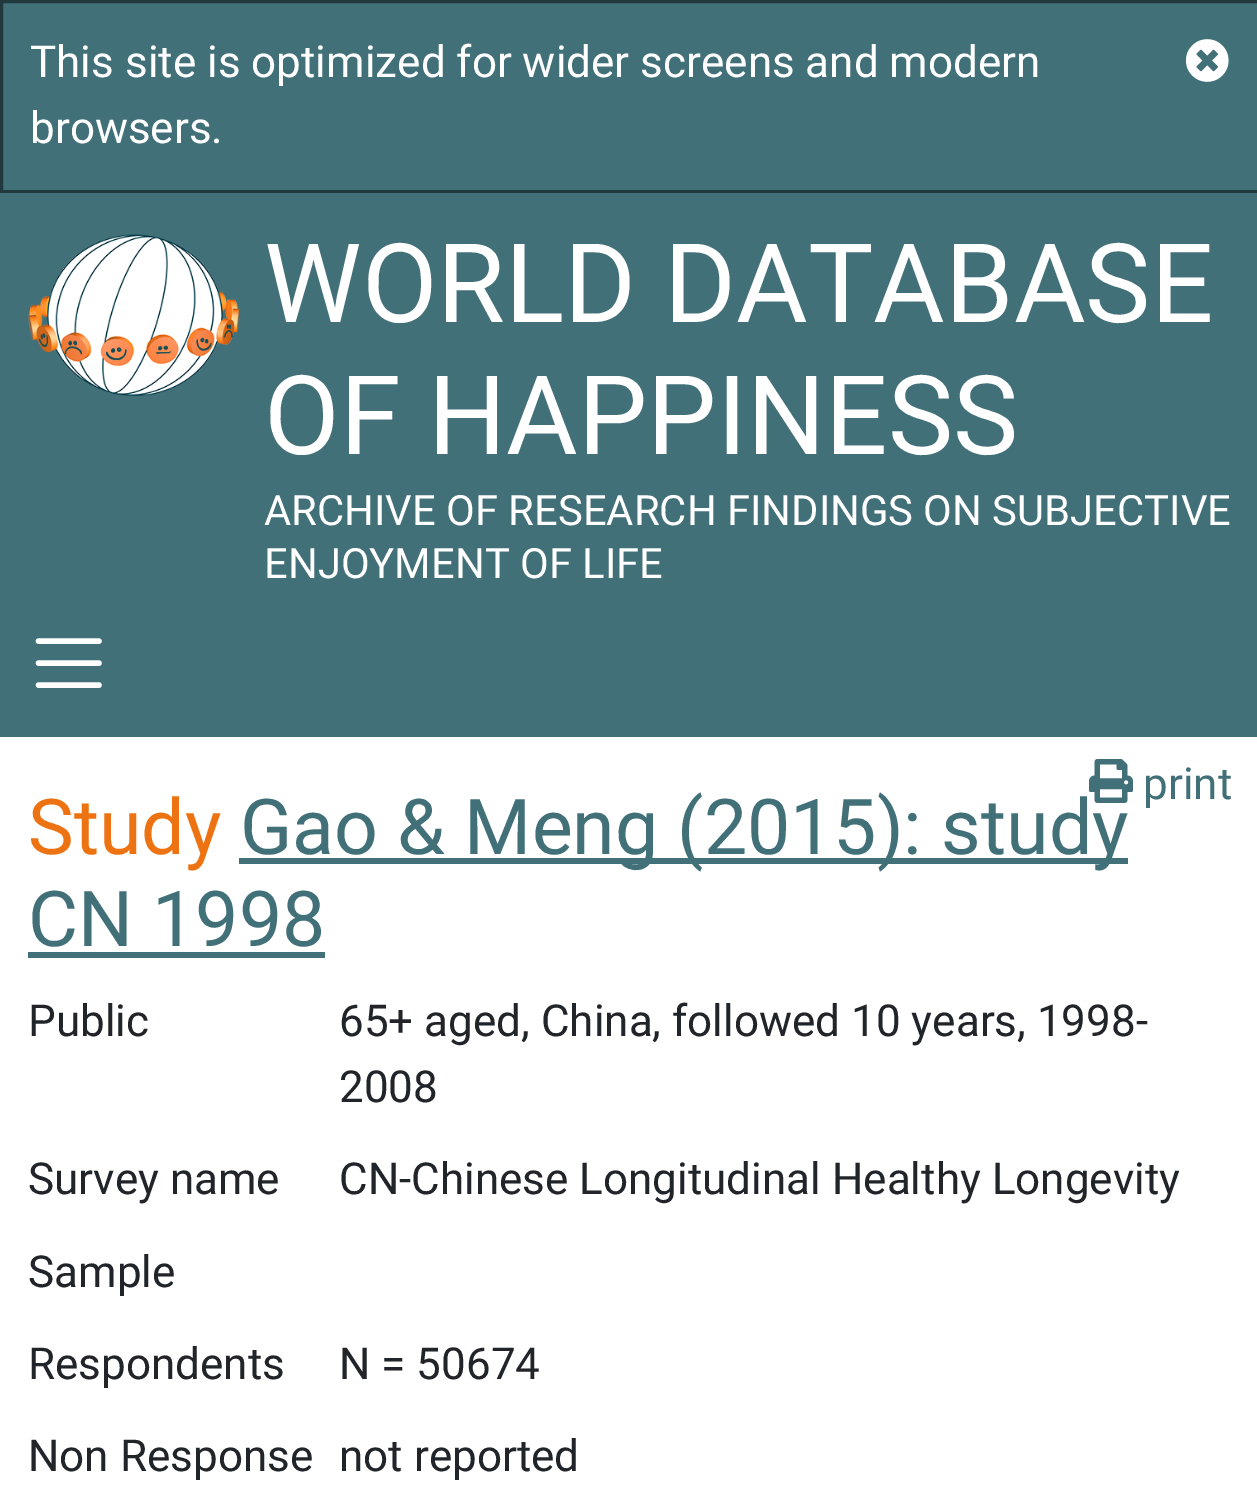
%!PS-Adobe-3.0
%%BoundingBox: 0 0 1257 1497
%%LanguageLevel: 3
%%Pages: 1
%%EndComments
%%BeginProlog
/setink { dup -16 bitshift 255 div exch dup -8 bitshift 255 and 255 div exch 255 and 255 div setrgbcolor } def
/usefont { [ exch dup neg 0 0 3 -1 roll 0 0 ] selectfont } def
/drawimage { 5 dict begin { /h /w /y /x /name } { exch def } forall
  gsave x y translate w h scale
  w h 8 [w 0 0 h 0 0] name (r) file false 3 colorimage grestore end } def
%%EndProlog
%%BeginSetup
<< /PageSize [1257 1497] >> setpagedevice
%%EndSetup
%%Page: 1 1
0 1497 translate 1 -1 scale
4 setmiterlimit
16#FFFFFF setink
0 0 1257 1497 rectfill
16#417078 setink
1.5 1.5 moveto 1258.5 1.5 lineto 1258.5 191.5 lineto 1.5 191.5 lineto closepath gsave fill grestore
16#21383C setink
3 setlinewidth
stroke
/Roboto-Regular 44 usefont
16#FFFFFF setink
30 77 moveto (This site is optimized for wider screens and modern) show
30 143 moveto (browsers.) show
(img1.raw) 1185 39 44 43 drawimage
16#417078 setink
0 193 1257 544 rectfill
(img2.raw) 28 234 212 162 drawimage
/Roboto-Regular 110 usefont
16#FFFFFF setink
264 322 moveto (WORLD DATABASE) show
264 454 moveto (OF HAPPINESS) show
/Roboto-Regular 41.8 usefont
264 525 moveto (ARCHIVE OF RESEARCH FINDINGS ON SUBJECTIVE) show
264 578 moveto (ENJOYMENT OF LIFE) show
5.5 setlinewidth
1 setlinecap
38.5 641 moveto 99 641 lineto 38.5 663 moveto 99 663 lineto 38.5 685 moveto 99 685 lineto stroke
16#417078 setink
239 858 889 6 rectfill
/Roboto-Regular 77 usefont
240 854 moveto (Gao & Meng \(2015\): study) show
(img3.raw) 1089 759 44 44 drawimage
/Roboto-Regular 44 usefont
1143 799 moveto (print) show
/Roboto-Regular 77 usefont
16#ED7212 setink
28 854 moveto (Study) show
16#417078 setink
28 946 moveto (CN 1998) show
28 952 297 6 rectfill
/Roboto-Regular 44 usefont
16#212529 setink
[
    [(Public) 28 1036]
    [(65+ aged, China, followed 10 years, 1998-) 339 1036]
    [(2008) 339 1102]
    [(Survey name) 28 1194]
    [(CN-Chinese Longitudinal Healthy Longevity) 339 1194]
    [(Sample) 28 1287]
    [(Respondents) 28 1379]
    [(N = 50674) 339 1379]
    [(Non Response) 28 1471]
    [(not reported) 339 1471]
] { aload pop moveto show } forall
showpage
%%EOF
